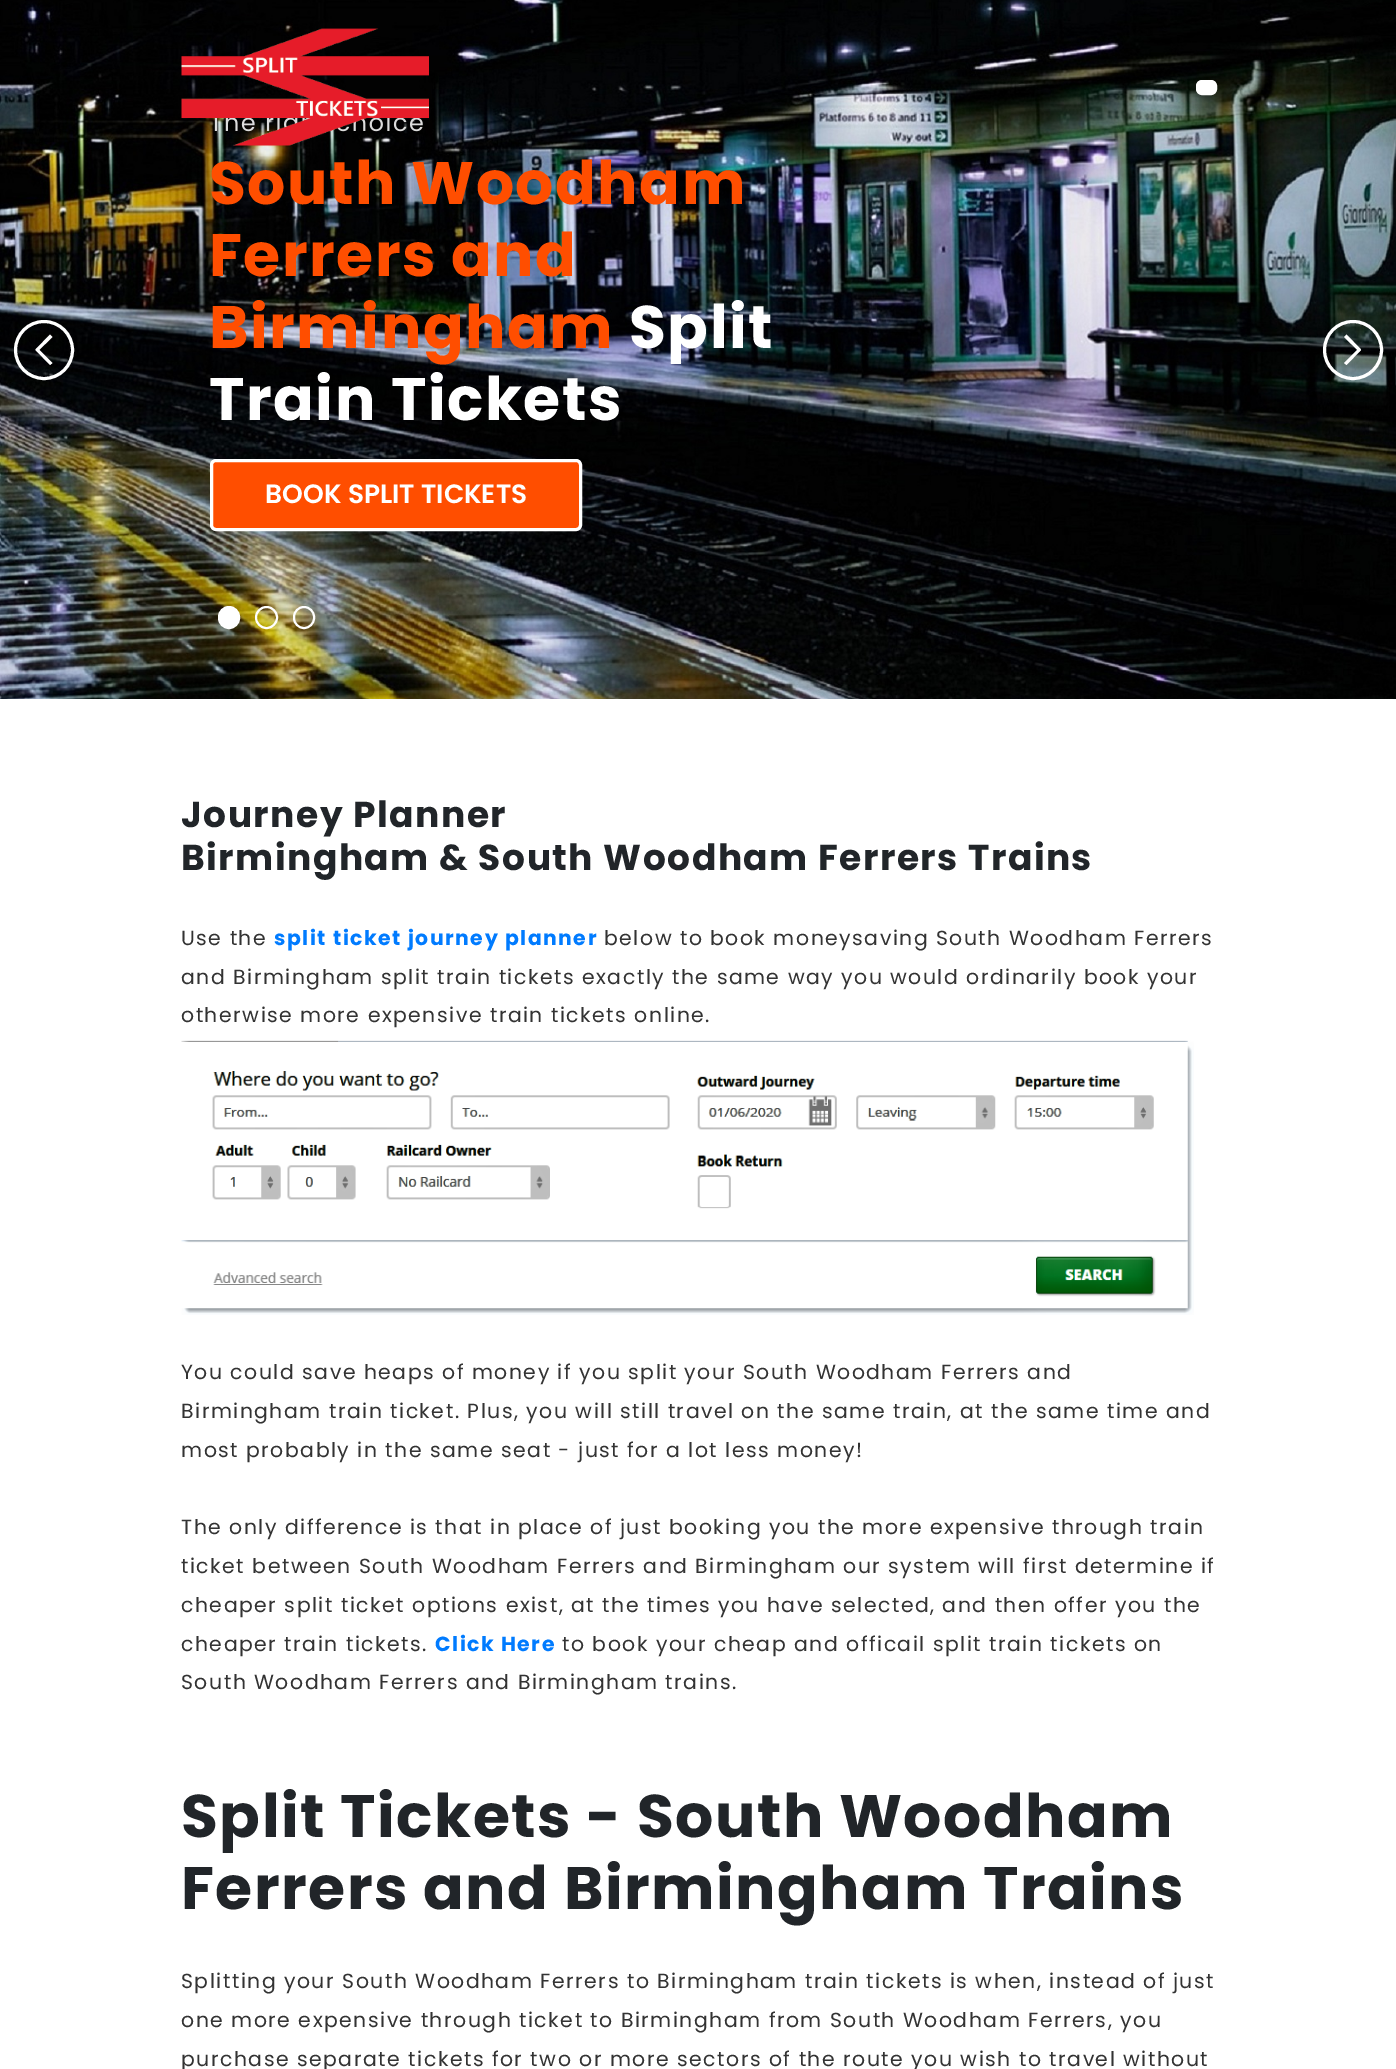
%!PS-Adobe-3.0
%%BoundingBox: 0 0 1396 2069
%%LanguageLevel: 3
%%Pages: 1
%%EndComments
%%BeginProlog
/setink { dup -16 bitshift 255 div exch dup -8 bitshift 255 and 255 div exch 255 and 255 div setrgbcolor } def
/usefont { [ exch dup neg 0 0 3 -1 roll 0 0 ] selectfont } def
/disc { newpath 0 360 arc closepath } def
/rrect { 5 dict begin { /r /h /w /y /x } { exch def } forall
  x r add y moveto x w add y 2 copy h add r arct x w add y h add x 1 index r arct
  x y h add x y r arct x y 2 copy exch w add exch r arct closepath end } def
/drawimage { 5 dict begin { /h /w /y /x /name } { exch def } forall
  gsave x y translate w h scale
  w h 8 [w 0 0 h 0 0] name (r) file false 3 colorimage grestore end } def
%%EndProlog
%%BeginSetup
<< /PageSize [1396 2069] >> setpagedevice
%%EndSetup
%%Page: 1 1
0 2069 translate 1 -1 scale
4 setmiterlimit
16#FFFFFF setink
0 0 1396 2069 rectfill
(img2.raw) 0 0 1396 699 drawimage
/Poppins-Regular 24 usefont
16#DDDDDD setink
241 131 moveto 1.5 0 (e r) ashow
369 131 moveto 1.5 0 (oice) ashow
(img1.raw) 181 28 248 118 drawimage
16#FFFFFF setink
1197 81 19 13 5 rrect gsave fill grestore
2 setlinewidth
stroke
/Poppins-Bold 60 usefont
16#FF4E00 setink
209 204 moveto 1.5 0 (South Woodham) ashow
209 276 moveto 1.5 0 (Ferrers and) ashow
209 348 moveto 1.5 0 (Birmingham) ashow
16#FFFFFF setink
629 348 moveto 1.5 0 (Split) ashow
209 420 moveto 1.5 0 (Train Tickets) ashow
16#FF4E00 setink
211.5 460.5 369 69 4.5 rrect gsave fill grestore
16#FFFFFF setink
3 setlinewidth
stroke
/Poppins-SemiBold 26.5 usefont
265 503 moveto (BOOK SPLIT TICKETS) show
44 350 28.5 disc stroke
35.5 350 moveto 37.5 348 lineto 52.5 363 lineto 50 365 lineto closepath fill
37.5 351.5 moveto 35.5 349.5 lineto 50 334.5 lineto 52.5 337 lineto closepath fill
1353 350 28.5 disc stroke
1359 348 moveto 1361 350 lineto 1346.5 365 lineto 1344 363 lineto closepath fill
1361 349.5 moveto 1359 351.5 lineto 1344 337 lineto 1346.5 334.5 lineto closepath fill
219 607 20 21 10 rrect gsave fill grestore
2 setlinewidth
stroke
266.5 617.5 10.5 disc stroke
294 607 20 21 10 rrect stroke
/Poppins-Bold 36 usefont
16#212529 setink
181 827 moveto 1.5 0 (Journey Planner) ashow
181 870 moveto 1.5 0 (Birmingham & South Woodham Ferrers Trains) ashow
/Poppins-Regular 20.4 usefont
16#333333 setink
181 945 moveto 1.5 0 (Use the) ashow
/Poppins-Bold 20.4 usefont
16#007BFF setink
274 945 moveto 1.5 0 (split ticket journey planner) ashow
/Poppins-Regular 20.4 usefont
16#333333 setink
604 945 moveto 1.5 0 (below to book moneysaving South Woodham Ferrers) ashow
181 984 moveto 1.5 0 (and Birmingham split train tickets exactly the same way you would ordinarily book your) ashow
181 1022 moveto 1.5 0 (otherwise more expensive train tickets online.) ashow
(img3.raw) 181 1040 1013 275 drawimage
181 1379 moveto 1.5 0 (You could save heaps of money if you split your South Woodham Ferrers and) ashow
181 1418 moveto 1.5 0 (Birmingham train ticket. Plus, you will still travel on the same train, at the same time and) ashow
181 1457 moveto 1.5 0 (most probably in the same seat - just for a lot less money!) ashow
181 1534 moveto 1.5 0 (The only difference is that in place of just booking you the more expensive through train) ashow
181 1573 moveto 1.5 0 (ticket between South Woodham Ferrers and Birmingham our system will first determine if) ashow
181 1612 moveto 1.5 0 (cheaper split ticket options exist, at the times you have selected, and then offer you the) ashow
181 1651 moveto 1.5 0 (cheaper train tickets.) ashow
/Poppins-Bold 20.4 usefont
16#007BFF setink
435 1651 moveto 1.5 0 (Click Here) ashow
/Poppins-Regular 20.4 usefont
16#333333 setink
562 1651 moveto 1.5 0 (to book your cheap and officail split train tickets on) ashow
181 1689 moveto 1.5 0 (South Woodham Ferrers and Birmingham trains.) ashow
/Poppins-Bold 60 usefont
16#212529 setink
181 1837 moveto 1.5 0 (Split Tickets - South Woodham) ashow
181 1909 moveto 1.5 0 (Ferrers and Birmingham Trains) ashow
/Poppins-Regular 20.4 usefont
16#333333 setink
181 1988 moveto 1.5 0 (Splitting your South Woodham Ferrers to Birmingham train tickets is when, instead of just) ashow
181 2027 moveto 1.5 0 (one more expensive through ticket to Birmingham from South Woodham Ferrers, you) ashow
181 2066 moveto 1.5 0 (purchase separate tickets for two or more sectors of the route you wish to travel without) ashow
showpage
%%EOF
